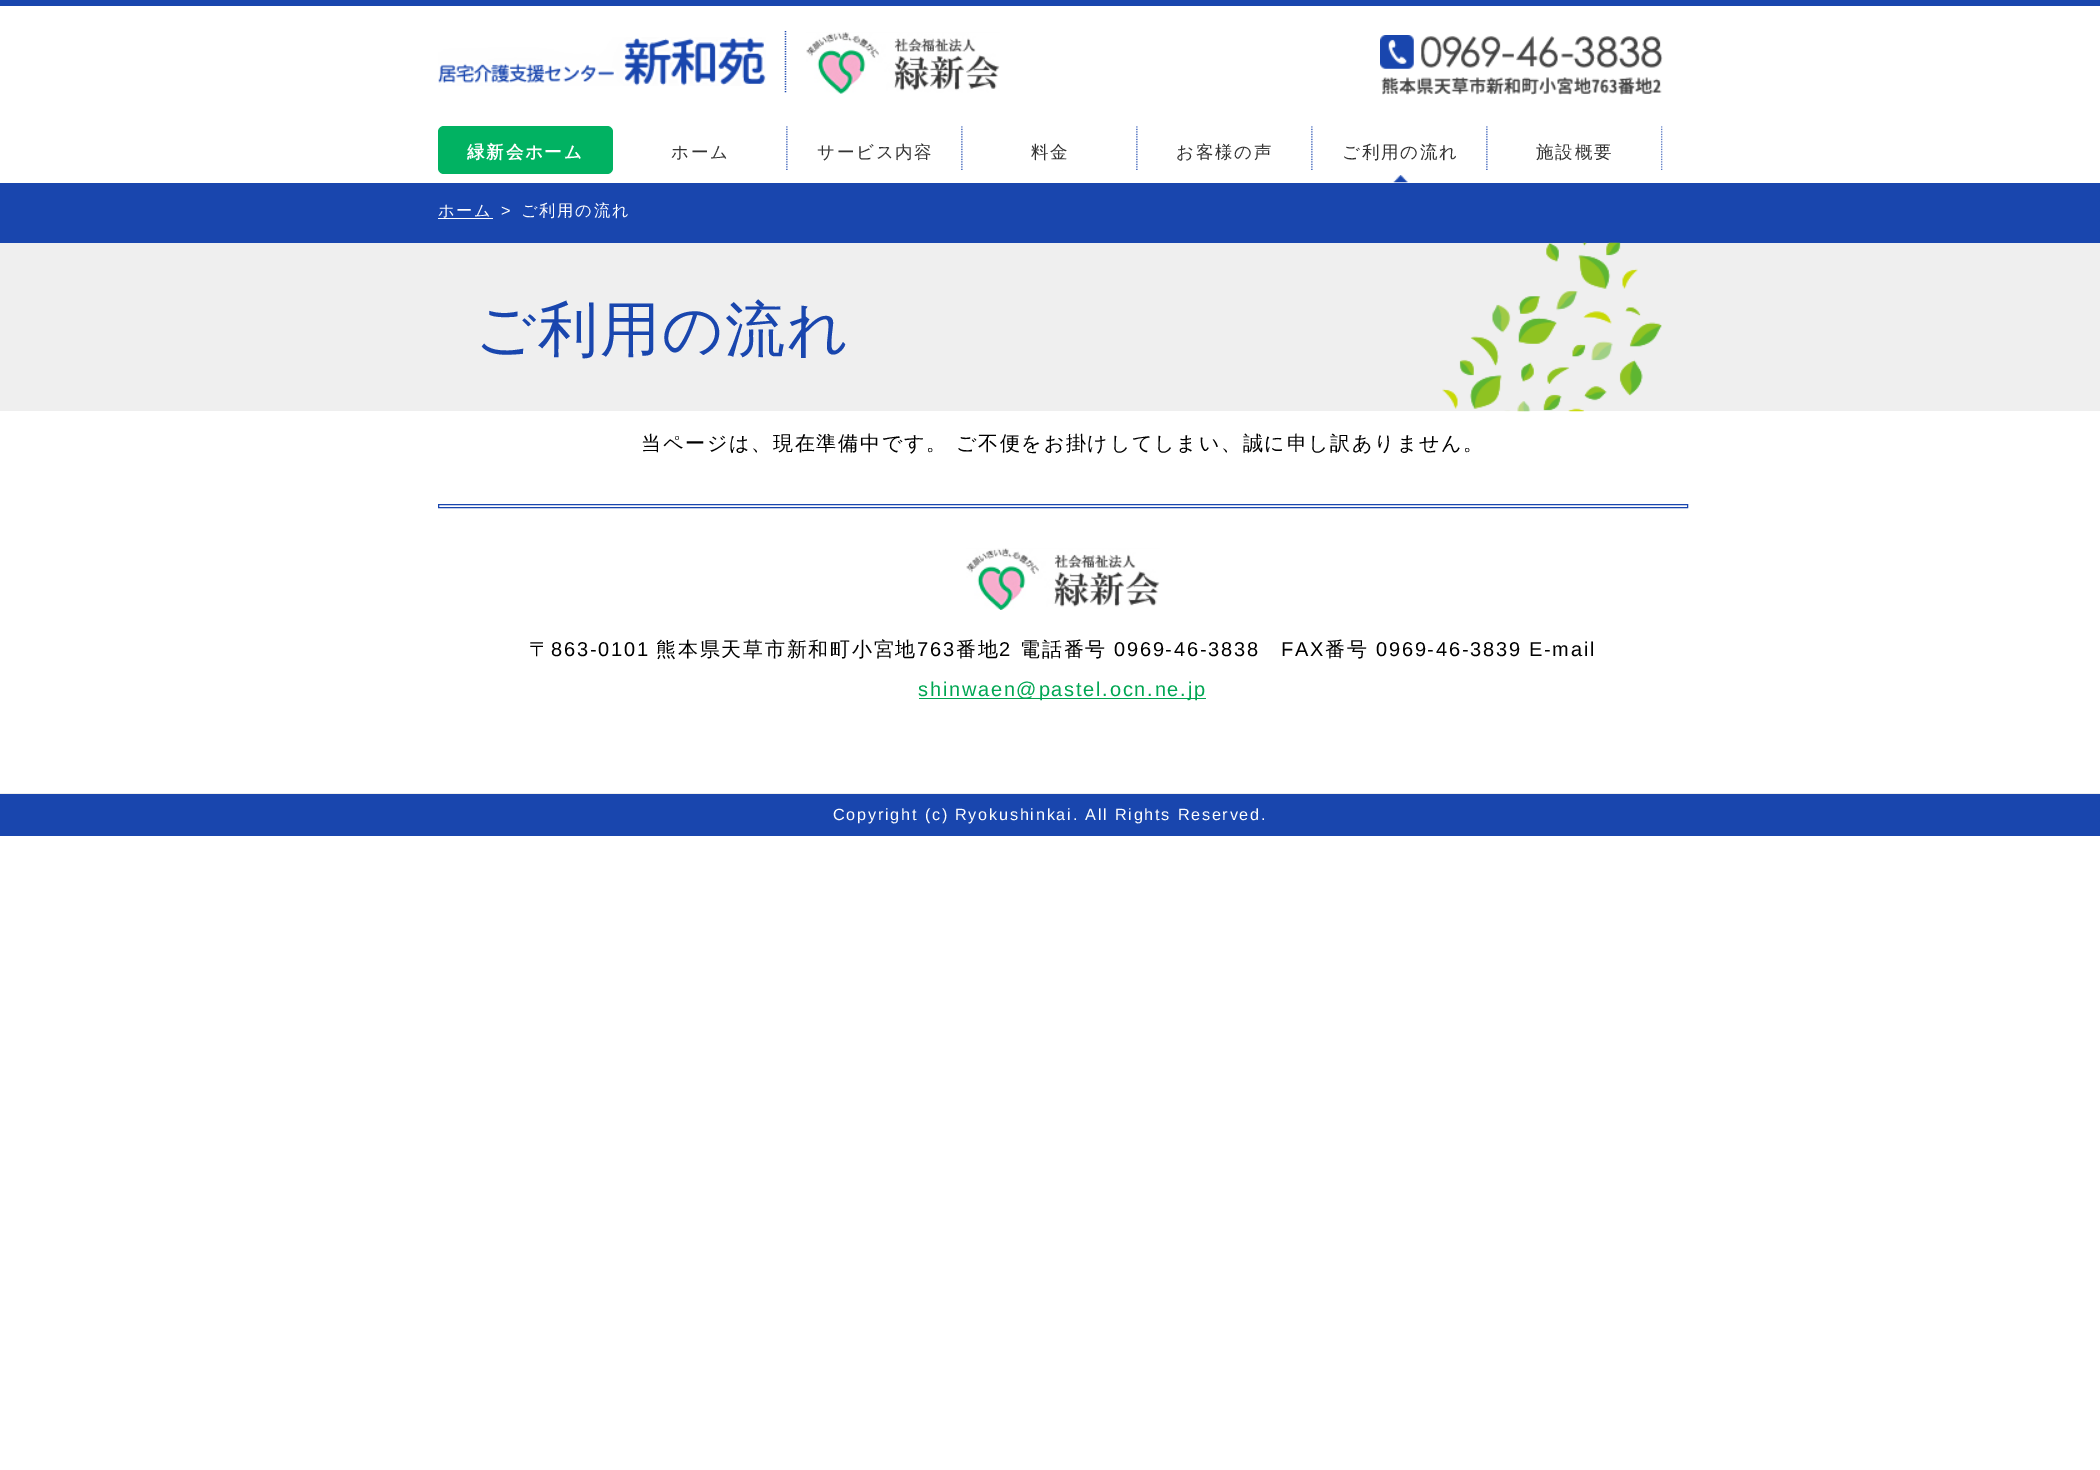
%!PS-Adobe-3.0
%%BoundingBox: 0 0 2100 1470
%%LanguageLevel: 3
%%Pages: 1
%%EndComments
%%BeginProlog
/setink { dup -16 bitshift 255 div exch dup -8 bitshift 255 and 255 div exch 255 and 255 div setrgbcolor } def
/usefont { [ exch dup neg 0 0 3 -1 roll 0 0 ] selectfont } def
/rrect { 5 dict begin { /r /h /w /y /x } { exch def } forall
  x r add y moveto x w add y 2 copy h add r arct x w add y h add x 1 index r arct
  x y h add x y r arct x y 2 copy exch w add exch r arct closepath end } def
/drawimage { 5 dict begin { /h /w /y /x /name } { exch def } forall
  gsave x y translate w h scale
  w h 8 [w 0 0 h 0 0] name (r) file false 3 colorimage grestore end } def
%%EndProlog
%%BeginSetup
<< /PageSize [2100 1470] >> setpagedevice
%%EndSetup
%%Page: 1 1
0 1470 translate 1 -1 scale
4 setmiterlimit
16#FFFFFF setink
0 0 2100 1470 rectfill
16#1946AE setink
0 0 2100 6 rectfill
1.2 setlinewidth
[1.25 1.25] 0 setdash
785.5 31 moveto 785.5 92.5 lineto stroke
(img1.raw) 438 37 328 49 drawimage
(img2.raw) 806 32 194 62 drawimage
(img3.raw) 1380 35 283 60 drawimage
16#01B262 setink
438 126 175 48 6 rrect fill
/WenQuanYiZenHei-Bold 17.5 usefont
16#FFFFFF setink
467 158 moveto 1.75 0 (緑新会ホーム) ashow
(img4.raw) 786 126 2 44 drawimage
/WenQuanYiZenHei-Medium 17.5 usefont
16#333333 setink
671 158 moveto 1.75 0 (ホーム) ashow
(img4.raw) 961 126 2 44 drawimage
817 158 moveto 1.75 0 (サービス内容) ashow
(img4.raw) 1136 126 2 44 drawimage
1031 158 moveto 1.75 0 (料金) ashow
(img4.raw) 1311 126 2 44 drawimage
1176 158 moveto 1.75 0 (お客様の声) ashow
(img4.raw) 1486 126 2 44 drawimage
(img5.raw) 1393 175 15 8 drawimage
1342 158 moveto 1.75 0 (ご利用の流れ) ashow
(img6.raw) 1661 126 2 44 drawimage
1536 158 moveto 1.75 0 (施設概要) ashow
16#1946AE setink
0 183 2100 60 rectfill
/WenQuanYiZenHei-Medium 16.25 usefont
16#FFFFFF setink
438 216 moveto 1.75 0 (ホーム) ashow
438 218 55 1 rectfill
/LiberationSans-Regular 16.25 usefont
501 216 moveto 1.75 0 (>) ashow
/WenQuanYiZenHei-Medium 16.25 usefont
521 216 moveto 1.75 0 (ご利用の流れ) ashow
16#EFEFEF setink
0 243 2100 168 rectfill
(img7.raw) 1442 242 220 170 drawimage
/WenQuanYiZenHei-Medium 60 usefont
16#1946AE setink
475 350 moveto 1.75 0 (ご利用の流れ) ashow
/WenQuanYiZenHei-Medium 20 usefont
16#000000 setink
641 450 moveto 1.75 0 (当ページは、現在準備中です。 ご不便をお掛けしてしまい、誠に申し訳ありません。) ashow
16#1946AE setink
1 setlinewidth
[] 0 setdash
438.5 504.5 1249 3 rectstroke
(img8.raw) 966 548 194 62 drawimage
16#000000 setink
529 656 moveto 1.75 0 (〒) ashow
/LiberationSans-Regular 20 usefont
551 656 moveto 1.75 0 (863-0101) ashow
/WenQuanYiZenHei-Medium 20 usefont
656 656 moveto 1.75 0 (熊本県天草市新和町小宮地) ashow
/LiberationSans-Regular 20 usefont
917 656 moveto 1.75 0 (763) ashow
/WenQuanYiZenHei-Medium 20 usefont
956 656 moveto 1.75 0 (番地) ashow
/LiberationSans-Regular 20 usefont
999 656 moveto 1.75 0 (2) ashow
/WenQuanYiZenHei-Medium 20 usefont
1020 656 moveto 1.75 0 (電話番号) ashow
/LiberationSans-Regular 20 usefont
1114 656 moveto 1.75 0 (0969-46-3838) ashow
1281 656 moveto 1.75 0 (FAX) ashow
/WenQuanYiZenHei-Medium 20 usefont
1325 656 moveto 1.75 0 (番号) ashow
/LiberationSans-Regular 20 usefont
1376 656 moveto 1.75 0 (0969-46-3839 E-mail) ashow
16#00A652 setink
919 698 287 1 rectfill
918 696 moveto 1.75 0 (shinwaen@pastel.ocn.ne.jp) ashow
16#EEEEEE setink
0 793 2100 1 rectfill
16#1946AE setink
0 794 2100 42 rectfill
/LiberationSans-Regular 16.25 usefont
16#FFFFFF setink
833 820 moveto 1.75 0 (Copyright \(c\) Ryokushinkai. All Rights Reserved.) ashow
showpage
%%EOF
